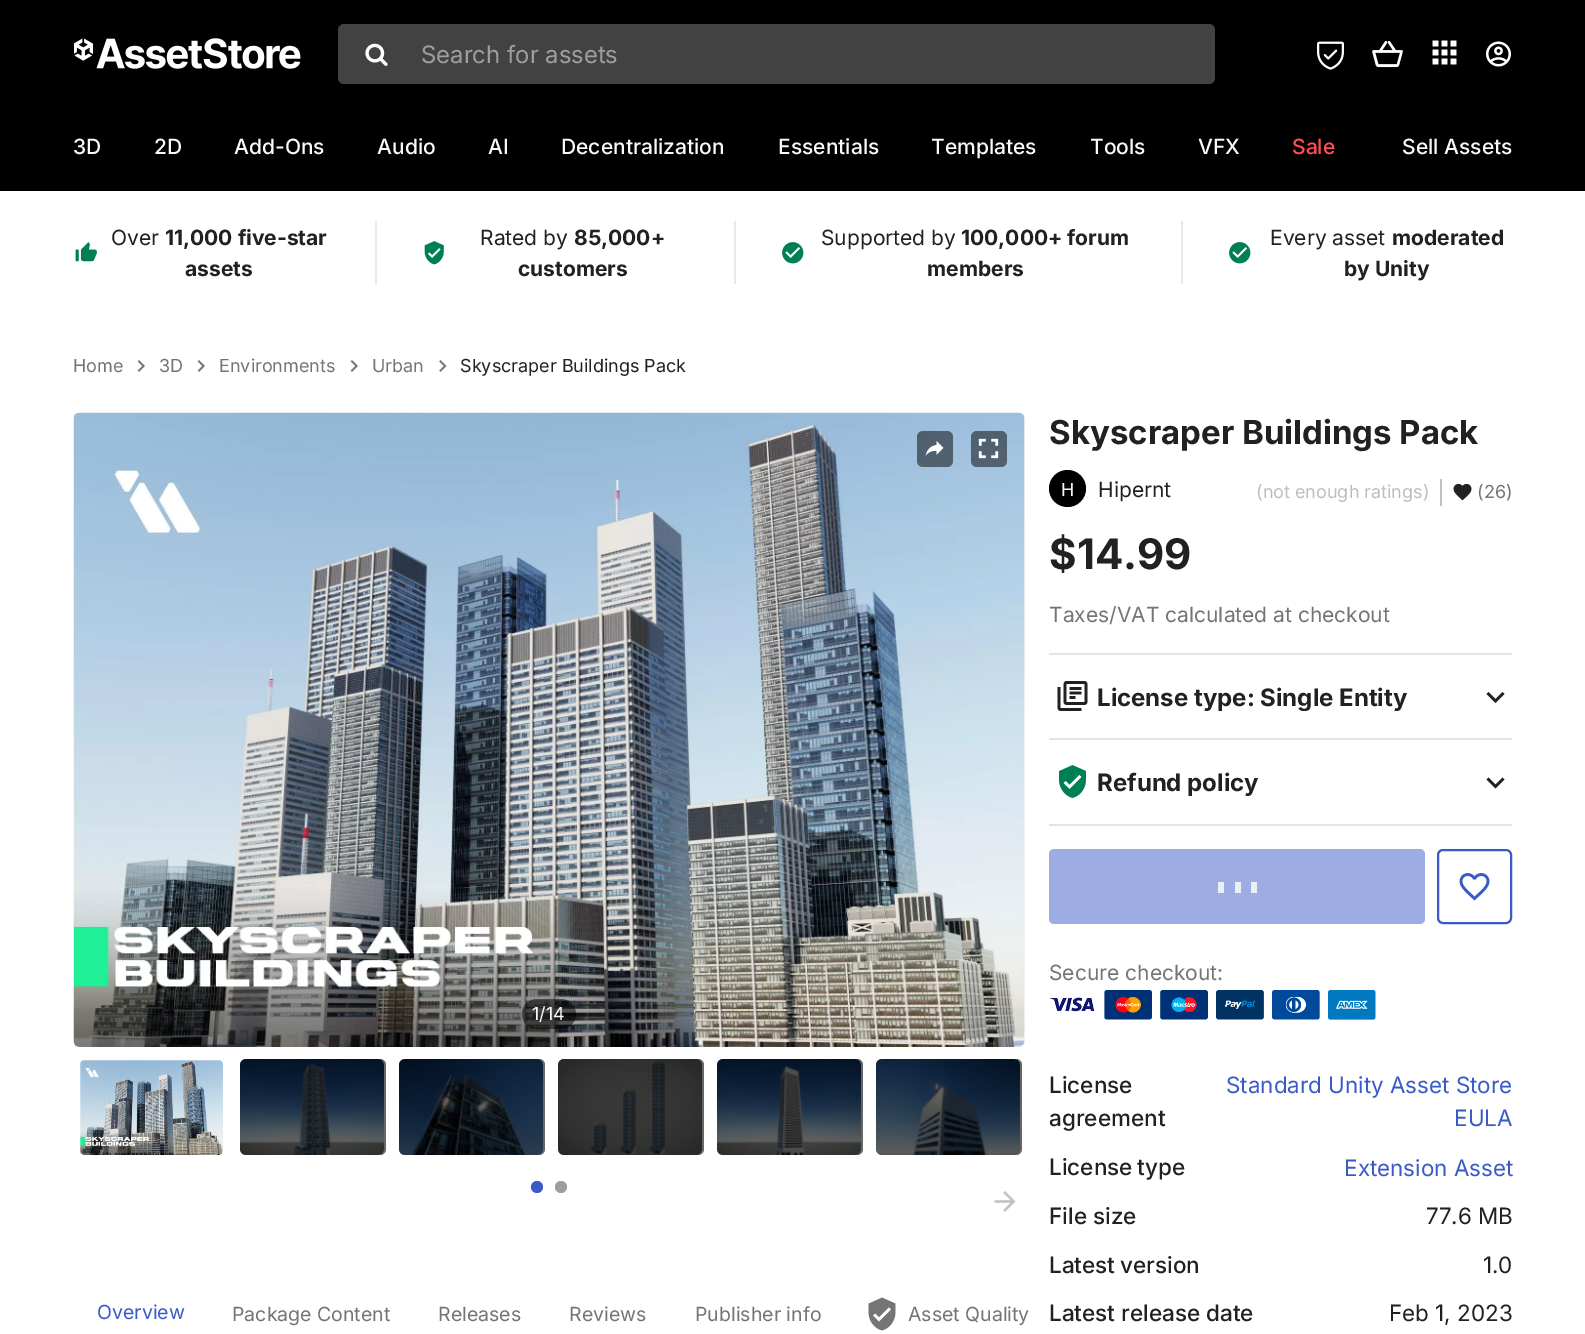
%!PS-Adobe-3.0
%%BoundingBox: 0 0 1585 1334
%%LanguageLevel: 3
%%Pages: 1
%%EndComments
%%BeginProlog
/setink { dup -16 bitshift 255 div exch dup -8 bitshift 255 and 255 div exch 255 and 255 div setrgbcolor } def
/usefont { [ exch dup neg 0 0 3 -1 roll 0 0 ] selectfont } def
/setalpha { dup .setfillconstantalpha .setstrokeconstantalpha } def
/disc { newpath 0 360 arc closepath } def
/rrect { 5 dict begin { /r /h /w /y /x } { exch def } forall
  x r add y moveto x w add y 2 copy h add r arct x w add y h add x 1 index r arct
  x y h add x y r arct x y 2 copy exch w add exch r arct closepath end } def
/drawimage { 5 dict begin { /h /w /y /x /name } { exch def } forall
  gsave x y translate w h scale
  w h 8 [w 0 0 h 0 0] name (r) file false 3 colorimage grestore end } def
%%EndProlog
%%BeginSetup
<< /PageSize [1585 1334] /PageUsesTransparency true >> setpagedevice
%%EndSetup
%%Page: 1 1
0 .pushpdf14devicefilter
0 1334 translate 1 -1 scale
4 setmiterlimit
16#FFFFFF setink
0 0 1585 1334 rectfill
16#000000 setink
0 0 1585 191 rectfill
(img1.raw) 74 38 227 31 drawimage
16#424242 setink
338 24 877 60 6 rrect fill
(img2.raw) 365 43 23 23 drawimage
/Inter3-Regular 24 usefont
16#9E9E9E setink
421 63 moveto (Search for assets) show
(img3.raw) 1317 41 27 29 drawimage
(img4.raw) 1372 41 31 27 drawimage
(img5.raw) 1432 40 25 25 drawimage
(img6.raw) 1486 41 25 26 drawimage
/Inter-Medium 21 usefont
16#FAFAFA setink
[
    [(3D) 73 154]
    [(2D) 154 154]
    [(Add-Ons) 234 154]
    [(Audio) 377 154]
    [(AI) 488 154]
    [(Decentralization) 561 154]
    [(Essentials) 778 154]
    [(Templates) 931 154]
    [(Tools) 1090 154]
    [(VFX) 1198 154]
] { aload pop moveto show } forall
16#FF5050 setink
1292 154 moveto (Sale) show
16#FAFAFA setink
1402 154 moveto (Sell Assets) show
(img7.raw) 75 242 22 20 drawimage
/Inter-Regular 21 usefont
16#212121 setink
111 245 moveto (Over) show
/Inter-Bold 21 usefont
165 245 moveto (11,000 five-star) show
185 276 moveto (assets) show
16#E9E9E9 setink
734 221 2 63 rectfill
375 221 2 63 rectfill
(img8.raw) 424 241 20 24 drawimage
/Inter-Regular 21 usefont
16#212121 setink
480 245 moveto (Rated by) show
/Inter-Bold 21 usefont
574 245 moveto (85,000+) show
518 276 moveto (customers) show
16#E9E9E9 setink
1181 221 2 63 rectfill
(img9.raw) 782 242 22 22 drawimage
/Inter-Regular 21 usefont
16#212121 setink
821 245 moveto (Supported by) show
/Inter-Bold 21 usefont
961 245 moveto (100,000+ forum) show
927 276 moveto (members) show
(img9.raw) 1229 242 22 22 drawimage
/Inter-Regular 21 usefont
1270 245 moveto (Every asset) show
/Inter-Bold 21 usefont
1392 245 moveto (moderated) show
1344 276 moveto (by Unity) show
/Inter-Regular 18 usefont
16#757575 setink
73 372 moveto (Home) show
(img10.raw) 137 360 8 12 drawimage
159 372 moveto (3D) show
(img10.raw) 197 360 8 12 drawimage
219 372 moveto (Environments) show
(img10.raw) 350 360 8 12 drawimage
372 372 moveto (Urban) show
(img11.raw) 439 360 8 12 drawimage
16#212121 setink
460 372 moveto (Skyscraper Buildings Pack) show
16#F5F5F5 setink
74 413 951 634 6 rrect fill
(img14.raw) 73 412 952 635 drawimage
0.5 setalpha
16#000000 setink
917 431 36 36 6 rrect fill
1 setalpha
(img12.raw) 925 441 19 15 drawimage
0.5 setalpha
971 431 36 36 6 rrect fill
1 setalpha
(img13.raw) 978 438 21 21 drawimage
0.5 setalpha
522 999 54 30 15 rrect fill
1 setalpha
16#FAFAFA setink
532 1020 moveto (1/14) show
(img15.raw) 79 1059 145 96 drawimage
16#FFFFFF setink
2 setlinewidth
79 1059 145 97 5 rrect stroke
(img16.raw) 240 1059 144 96 drawimage
0.6 setalpha
16#000000 setink
240 1059 146 96 6 rrect fill
1 setalpha
(img17.raw) 399 1059 144 96 drawimage
0.6 setalpha
399 1059 146 96 6 rrect fill
1 setalpha
(img18.raw) 558 1059 144 96 drawimage
0.6 setalpha
558 1059 146 96 6 rrect fill
1 setalpha
(img19.raw) 717 1059 144 96 drawimage
0.6 setalpha
717 1059 146 96 6 rrect fill
1 setalpha
(img20.raw) 876 1059 144 96 drawimage
0.6 setalpha
876 1059 146 96 6 rrect fill
1 setalpha
16#3A5BC7 setink
537 1187 6 disc fill
16#9E9E9E setink
561 1187 6 disc fill
(img21.raw) 994 1191 22 21 drawimage
/Inter-Regular 19.5 usefont
16#3A5BC7 setink
97 1319 moveto (Overview) show
16#757575 setink
[
    [(Package Content) 232 1321]
    [(Releases) 438 1321]
    [(Reviews) 569 1321]
    [(Publisher info) 695 1321]
] { aload pop moveto show } forall
(img22.raw) 868 1297 28 34 drawimage
908 1321 moveto (Asset Quality) show
/Inter-Bold 33 usefont
16#212121 setink
1049 444 moveto (Skyscraper Buildings Pack) show
16#000000 setink
1067.5 488.5 18.5 disc fill
/Inter-Regular 18 usefont
16#FAFAFA setink
1061 496 moveto (H) show
/Inter-Regular 21 usefont
16#212121 setink
1098 497 moveto (Hipernt) show
/Inter-Regular 18 usefont
16#BDBDBD setink
1256 498 moveto (\(not enough ratings\)) show
16#C2C2C2 setink
1440 479 2 27 rectfill
(img23.raw) 1453 483 19 18 drawimage
16#757575 setink
1477 498 moveto (\(26\)) show
/Inter-Bold 42 usefont
16#212121 setink
1049 569 moveto ($14.99) show
/Inter-Regular 21 usefont
16#757575 setink
1049 622 moveto (Taxes/VAT calculated at checkout) show
16#E4E4E4 setink
1049 653 463 2 rectfill
(img24.raw) 1057 681 31 30 drawimage
gsave
1097 681 379 30 rectclip
/Inter-Bold 24 usefont
16#212121 setink
1097 706 moveto (License type: Single Entity) show
grestore
16#212121 setink
1495.5 703 moveto 1504.5 694 lineto 1502.5 692 lineto 1495.5 699 lineto 1488.5 692 lineto 1486.5 694 lineto closepath fill
16#E4E4E4 setink
1049 738 463 2 rectfill
1049 824 463 2 rectfill
(img25.raw) 1059 765 27 33 drawimage
/Inter-Bold 24 usefont
16#212121 setink
1097 791 moveto (Refund policy) show
1495.5 788.5 moveto 1504.5 779.5 lineto 1502.5 777.5 lineto 1495.5 784.5 lineto 1488.5 777.5 lineto 1486.5 779.5 lineto closepath fill
16#9DADE3 setink
1049 849 376 75 5 rrect fill
[
    [1218 882 6 11 16#EBEFF9]
    [1235 882 6 11 16#EBEFF9]
    [1251 882 6 11 16#EBEFF9]
] { aload pop setink rectfill } forall
16#3A5BC7 setink
1438 850 73 73 5 rrect stroke
(img26.raw) 1459 873 31 28 drawimage
/Inter-Regular 21 usefont
16#757575 setink
1049 980 moveto (Secure checkout:) show
(img27.raw) 1049 990 327 30 drawimage
/Inter-Medium 22.5 usefont
16#212121 setink
1049 1093 moveto (License) show
1049 1126 moveto (agreement) show
/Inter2-Regular 22.5 usefont
16#3A5BC7 setink
1226 1093 moveto (Standard Unity Asset Store) show
1454 1126 moveto (EULA) show
/Inter-Medium 22.5 usefont
16#212121 setink
1049 1175 moveto -1 0 32 (License type) widthshow
/Inter2-Regular 22.5 usefont
16#3A5BC7 setink
1344 1176 moveto (Extension Asset) show
/Inter-Medium 22.5 usefont
16#212121 setink
1049 1224 moveto (File size) show
/Inter2-Regular 22.5 usefont
1426 1224 moveto (77.6 MB) show
/Inter-Medium 22.5 usefont
1049 1273 moveto -1 0 32 (Latest version) widthshow
/Inter2-Regular 22.5 usefont
1483 1273 moveto (1.0) show
/Inter-Medium 22.5 usefont
1049 1321 moveto (Latest release date) show
/Inter2-Regular 22.5 usefont
1389 1321 moveto (Feb 1, 2023) show
.poppdf14devicefilter showpage
%%EOF
